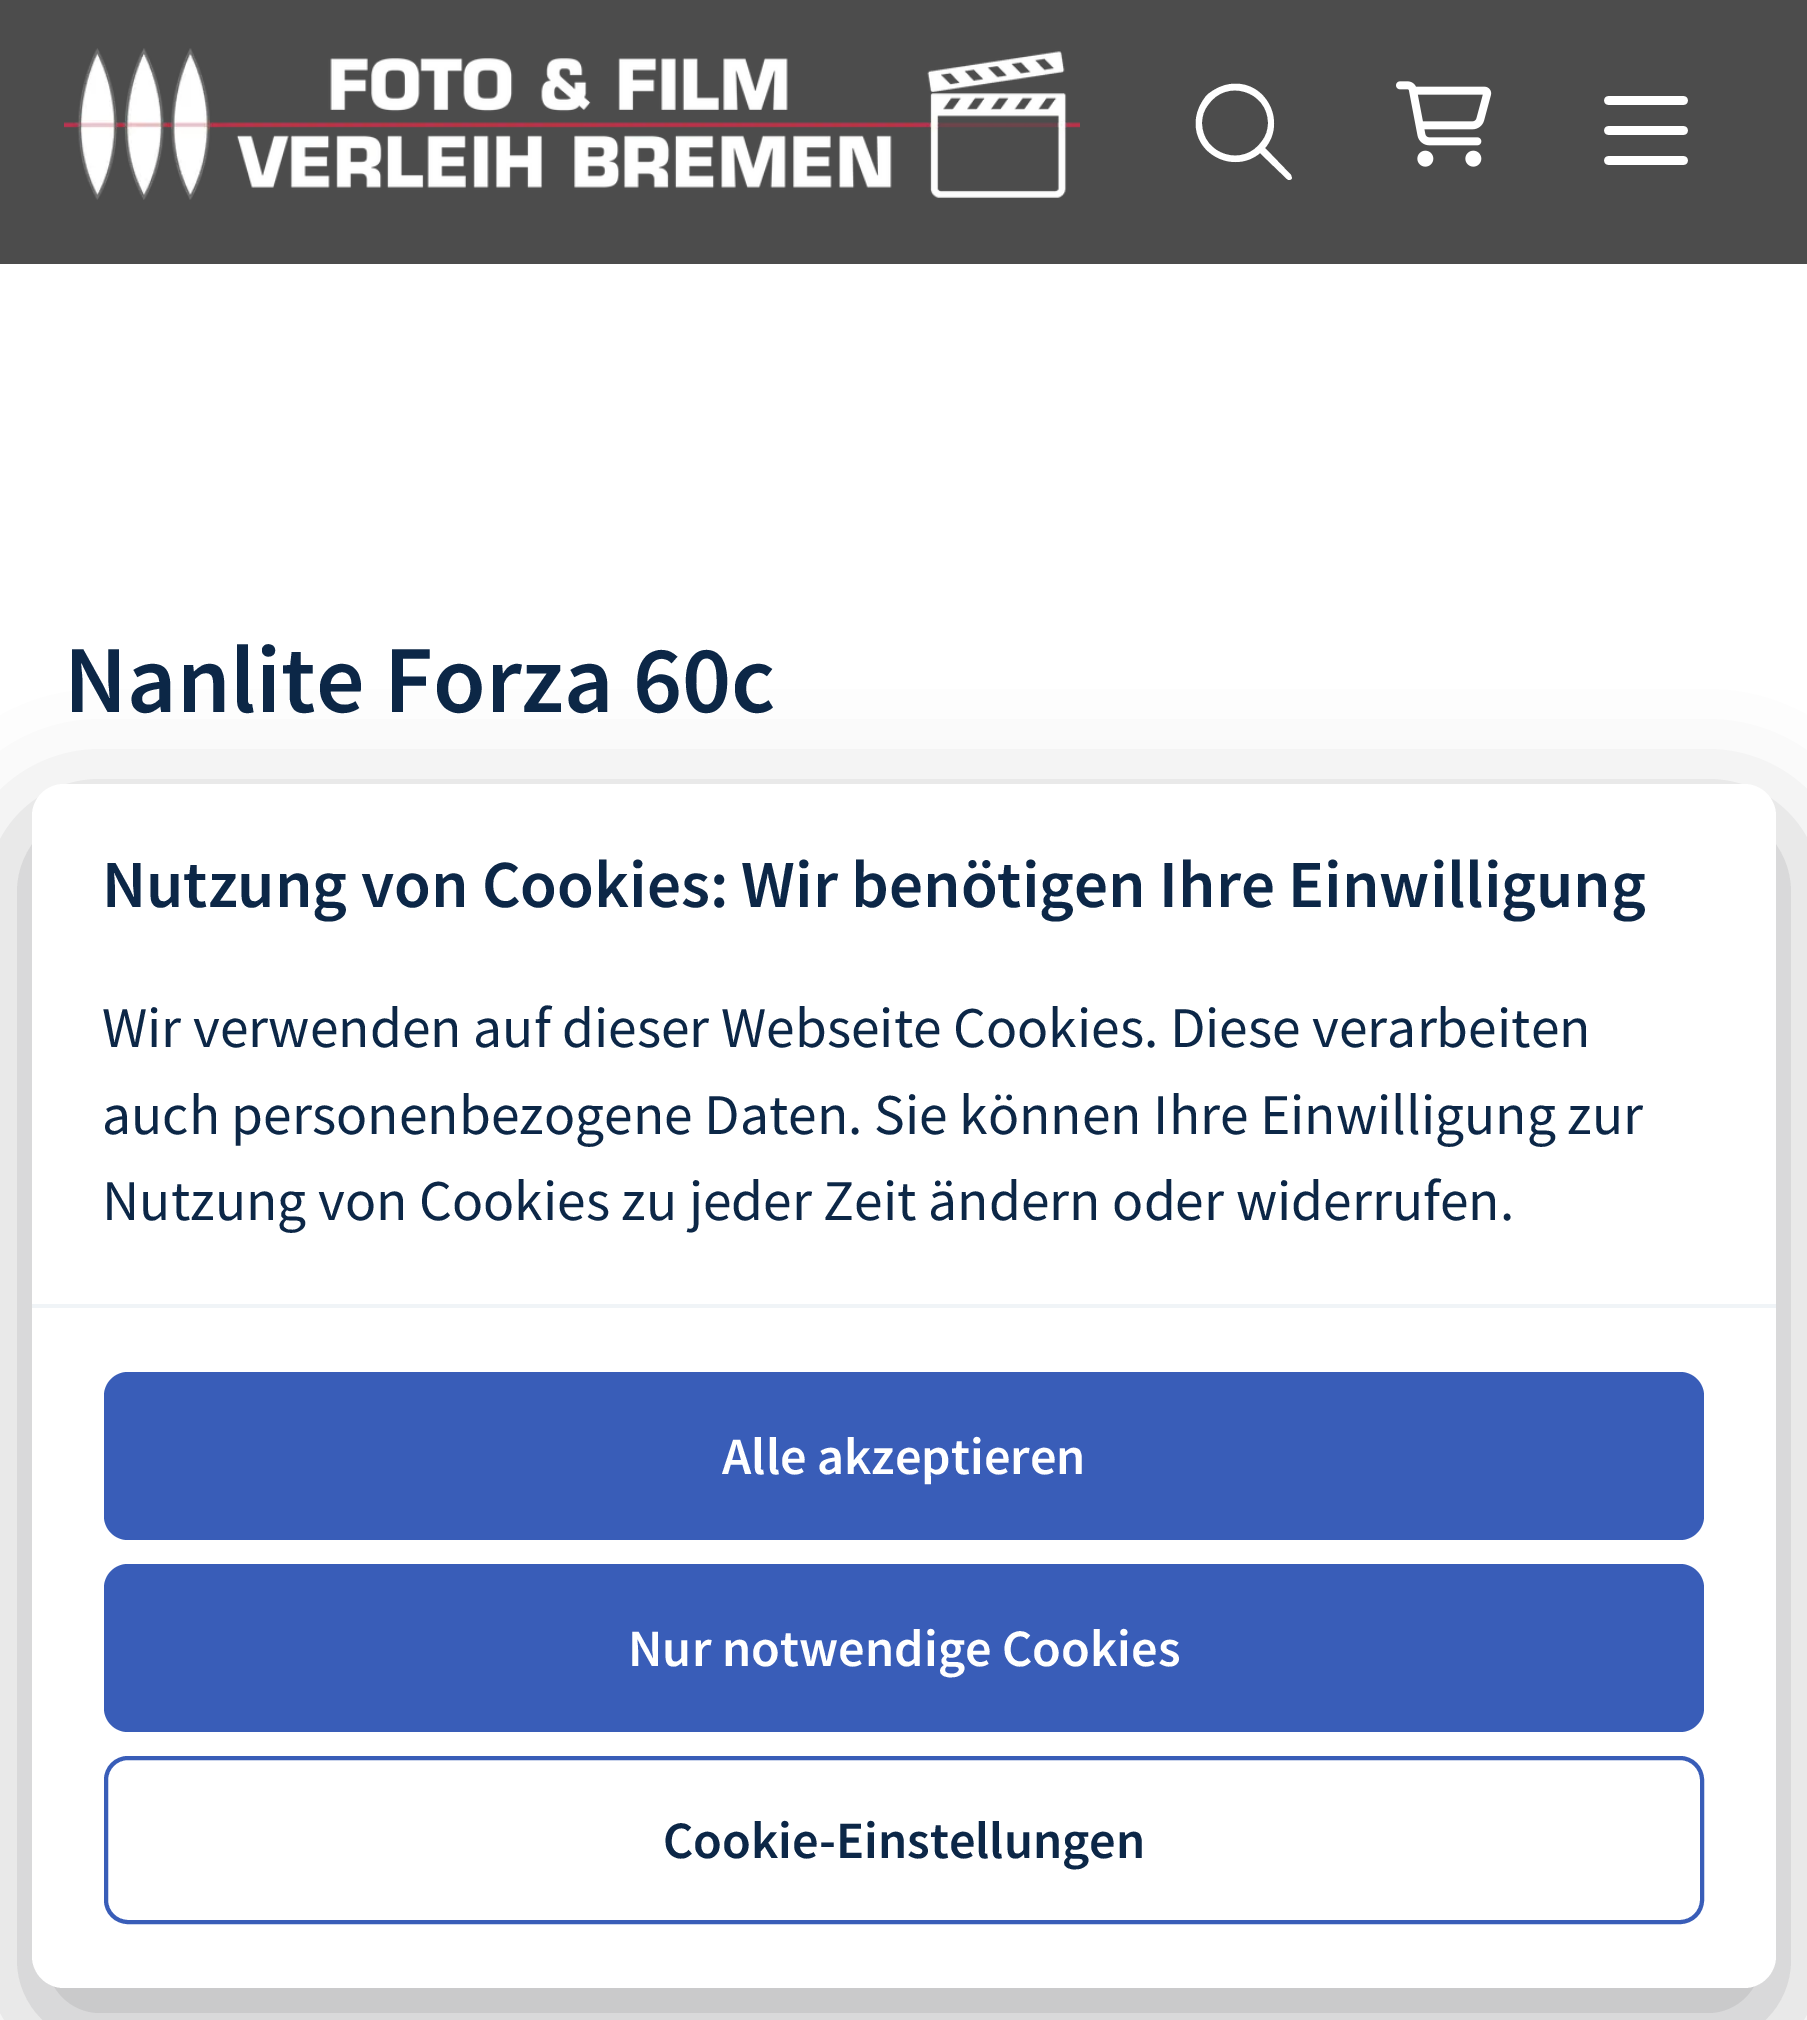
%!PS-Adobe-3.0
%%BoundingBox: 0 0 1807 2020
%%LanguageLevel: 3
%%Pages: 1
%%EndComments
%%BeginProlog
/setink { dup -16 bitshift 255 div exch dup -8 bitshift 255 and 255 div exch 255 and 255 div setrgbcolor } def
/usefont { [ exch dup neg 0 0 3 -1 roll 0 0 ] selectfont } def
/setalpha { dup .setfillconstantalpha .setstrokeconstantalpha } def
/rrect { 5 dict begin { /r /h /w /y /x } { exch def } forall
  x r add y moveto x w add y 2 copy h add r arct x w add y h add x 1 index r arct
  x y h add x y r arct x y 2 copy exch w add exch r arct closepath end } def
/softshadow { 12 dict begin { /a /b /q /h /w /y /x } { exch def } forall gsave /was 0 def
  9 -2 -9 { dup b mul 4 div /e exch def 1 sub .425 mul 2.718 exch exp 1 add a .99 .min exch div /now exch def
    1 1 now sub 1 was sub div sub setalpha /was now def
    w h .min e 2 mul add 0 gt { x e sub y e sub w e 2 mul add h e 2 mul add
      q e add b .6 mul add w h .min 2 div e add .min 0 .max rrect fill } if } for grestore end } def
/drawimage { 5 dict begin { /h /w /y /x /name } { exch def } forall
  gsave x y translate w h scale
  w h 8 [w 0 0 h 0 0] name (r) file false 3 colorimage grestore end } def
%%EndProlog
%%BeginSetup
<< /PageSize [1807 2020] /PageUsesTransparency true >> setpagedevice
%%EndSetup
%%Page: 1 1
0 .pushpdf14devicefilter
0 2020 translate 1 -1 scale
4 setmiterlimit
16#FFFFFF setink
0 0 1807 2020 rectfill
16#4C4C4C setink
0 0 1807 264 rectfill
(img1.raw) 64 48 1016 152 drawimage
16#FFFFFF setink
1268 123 moveto 1268 91 1226 78 1208 105 curveto 1204 110 1202 116 1202 123 curveto 1202 155 1244 168 1262 141 curveto 1266 136 1268 130 1268 123 curveto closepath 1260 153 moveto 1234 175 1192 154 1196 119 curveto 1197 110 1201 102 1207 95 curveto 1214 89 1222 85 1231 84 curveto 1266 80 1287 122 1265 148 curveto 1291 175 lineto 1292 178 lineto 1291 180 1289 181 1287 179 curveto closepath fill
(img2.raw) 1396 81 96 86 drawimage
(img3.raw) 1604 96 84 69 drawimage
/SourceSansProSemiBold-SemiBold 96 usefont
16#0C2747 setink
64 712 moveto (Nanlite Forza 60c) show
16#000002 setink
32 824 1744 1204 32 60 0.3 softshadow
16#FFFFFF setink
32 784 1744 1204 32 rrect fill
/SourceSansProSemiBold-SemiBold 67.2 usefont
16#0C2747 setink
102 907 moveto -0.25 0 32 (Nutzung von Cookies: Wir benötigen Ihre Einwilligung) widthshow
/SourceSansPro-Regular 57.6 usefont
[
    [(Wir verwenden auf dieser Webseite Cookies. Diese verarbeiten) 102 1047]
    [(auch personenbezogene Daten. Sie können Ihre Einwilligung zur) 102 1134]
    [(Nutzung von Cookies zu jeder Zeit ändern oder widerrufen.) 102 1220]
] { aload pop moveto show } forall
16#F0F4F7 setink
32 1304 1744 4 rectfill
16#395DB8 setink
104 1372 1600 168 24 rrect fill
/SourceSansProSemiBold-SemiBold 52.5 usefont
16#FFFFFF setink
722 1474 moveto (Alle akzeptieren) show
16#395DB8 setink
104 1564 1600 168 24 rrect fill
16#FFFFFF setink
628 1666 moveto (Nur notwendige Cookies) show
16#395DB8 setink
4 setlinewidth
106 1758 1596 164 22 rrect stroke
16#0C2747 setink
663 1858 moveto (Cookie-Einstellungen) show
.poppdf14devicefilter showpage
%%EOF
